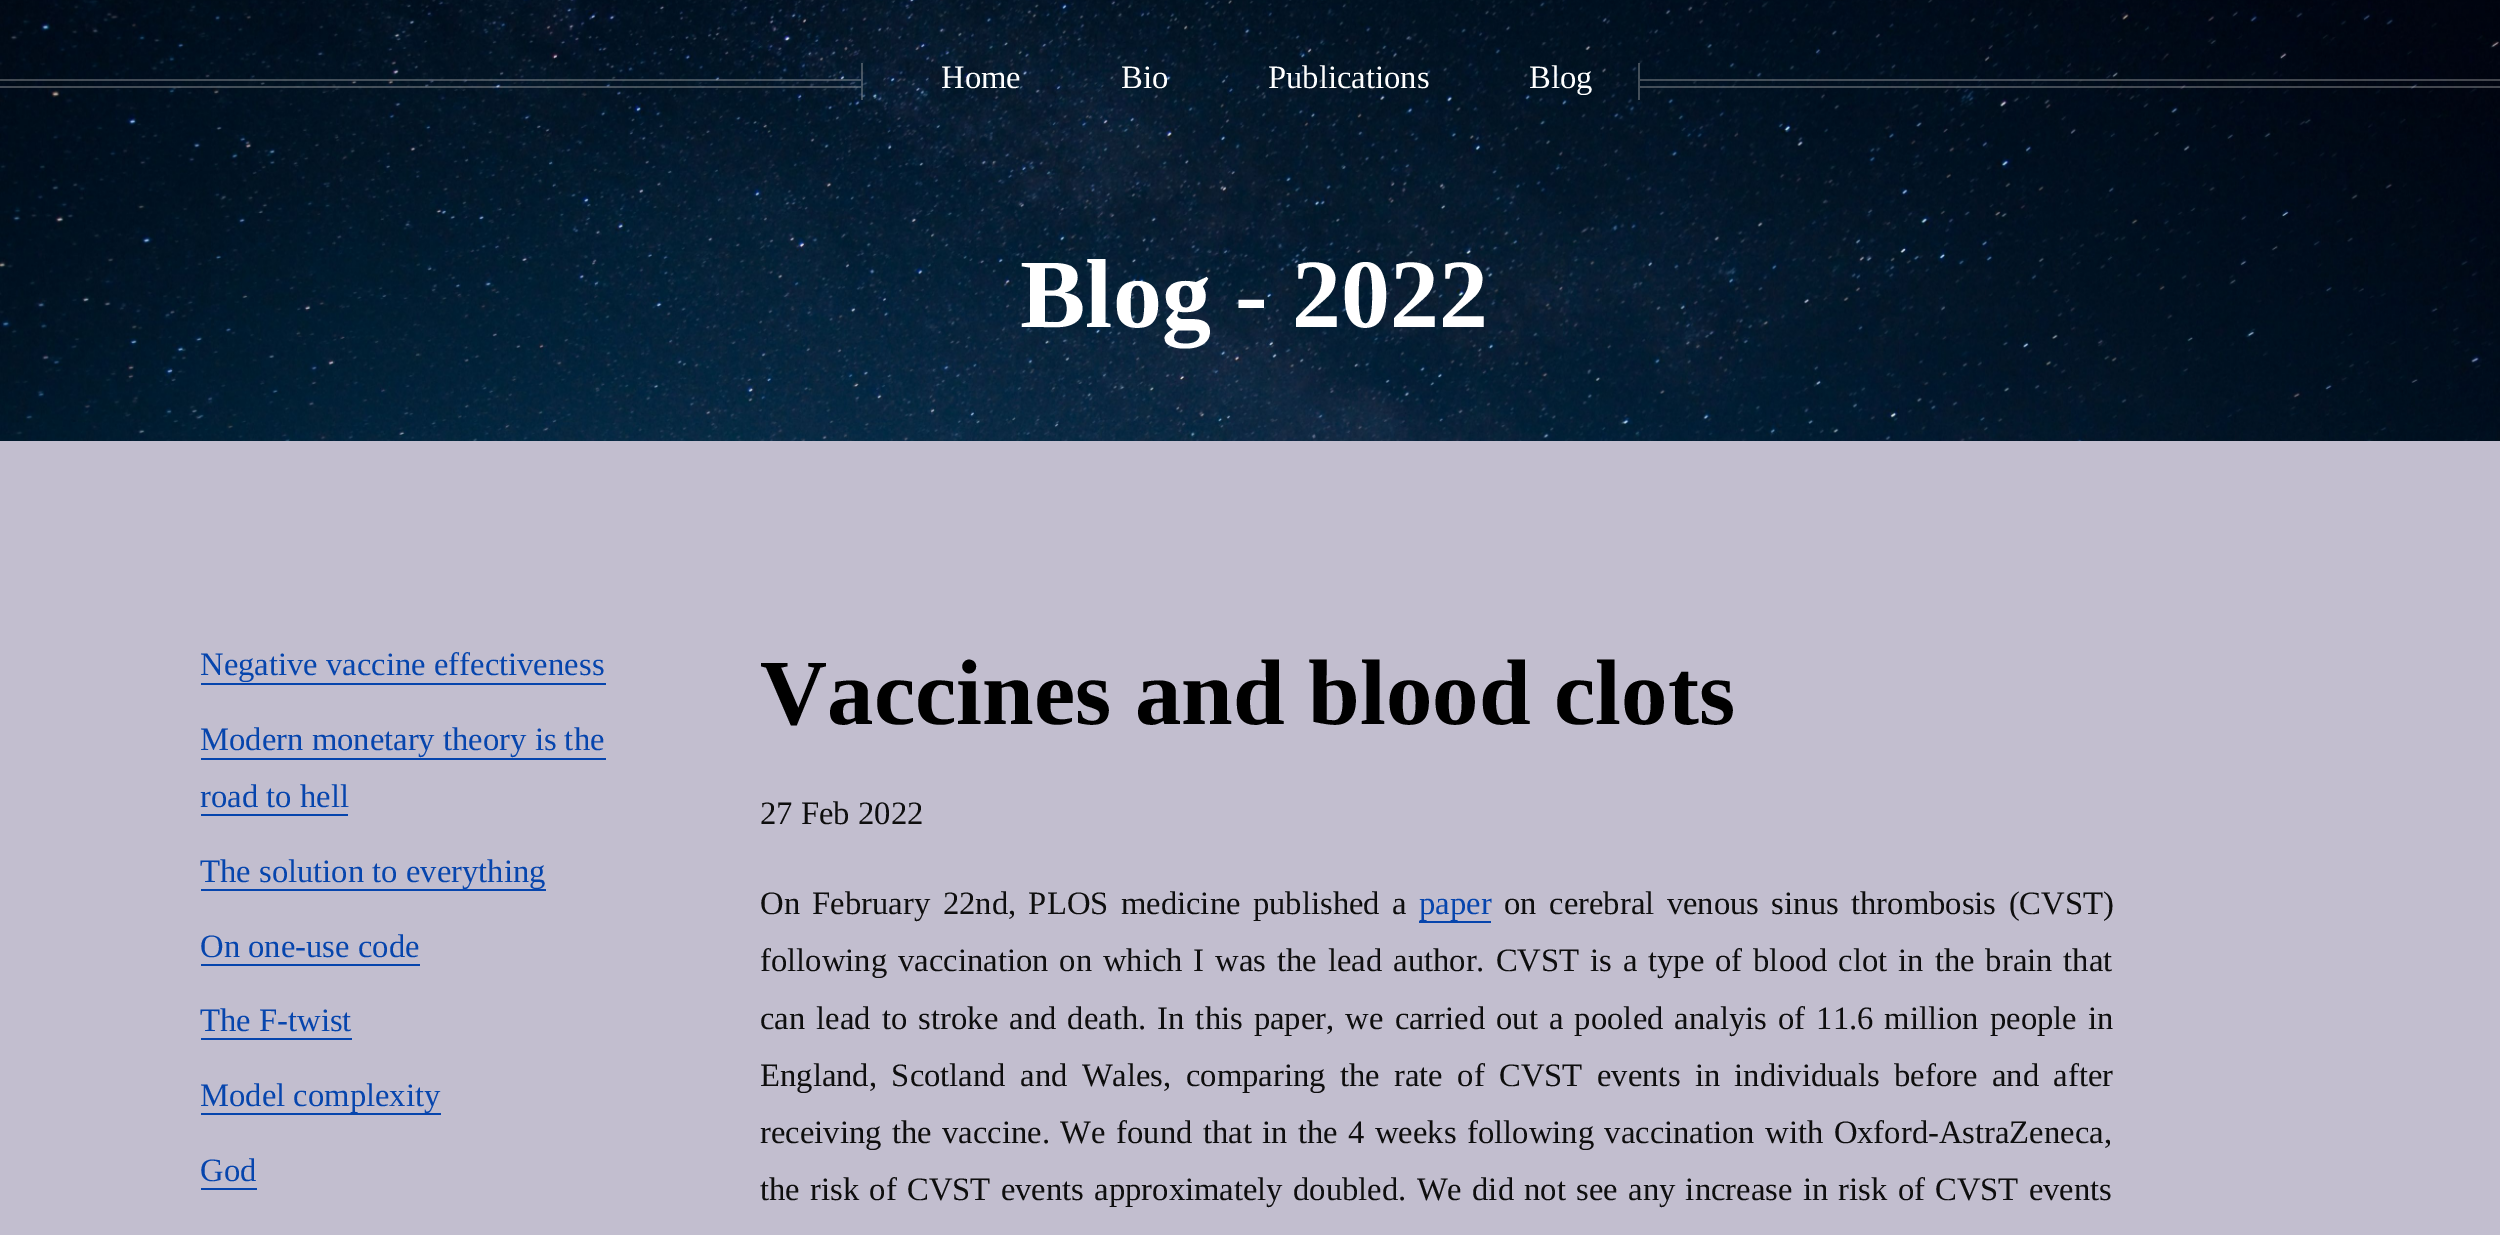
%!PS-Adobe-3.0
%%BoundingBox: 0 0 2500 1235
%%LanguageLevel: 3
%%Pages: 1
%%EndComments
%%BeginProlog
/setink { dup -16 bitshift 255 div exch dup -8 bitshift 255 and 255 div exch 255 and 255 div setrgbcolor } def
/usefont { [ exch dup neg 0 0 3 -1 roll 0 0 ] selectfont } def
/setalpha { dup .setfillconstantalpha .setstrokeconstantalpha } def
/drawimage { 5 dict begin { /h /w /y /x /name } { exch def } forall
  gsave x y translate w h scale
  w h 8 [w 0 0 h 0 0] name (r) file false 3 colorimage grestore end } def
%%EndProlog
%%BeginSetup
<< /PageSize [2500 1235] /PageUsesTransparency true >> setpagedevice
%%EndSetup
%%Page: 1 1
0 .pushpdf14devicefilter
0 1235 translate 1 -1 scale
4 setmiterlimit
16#C2BECF setink
0 0 2500 1235 rectfill
(img1.raw) 0 0 2500 441 drawimage
0.35 setalpha
[
    [1638 63 2 37 16#C0C0C0]
    [861 63 2 37 16#C0C0C0]
    [0 79 861 2 16#C0C0C0]
    [0 86 861 2 16#C0C0C0]
] { aload pop setink rectfill } forall
/LiberationSerif-Regular 32.65 usefont
1 setalpha
16#FFFFFF setink
[
    [(Home) 941 88]
    [(Bio) 1121 88]
    [(Publications) 1268 88]
    [(Blog) 1529 88]
] { aload pop moveto show } forall
0.35 setalpha
16#C0C0C0 setink
1640 79 860 2 rectfill
1640 86 860 2 rectfill
/LiberationSerif-Bold 98 usefont
1 setalpha
16#FFFFFF setink
1020 327 moveto (Blog - 2022) show
/LiberationSerif-Regular 32.65 usefont
16#0645AD setink
200 675 moveto (Negative vaccine effectiveness) show
201 683 405 2 rectfill
200 750 moveto (Modern monetary theory is the) show
201 758 405 2 rectfill
200 807 moveto (road to hell) show
201 814 147 2 rectfill
201 889 345 2 rectfill
200 882 moveto (The solution to everything) show
200 957 moveto (On one-use code) show
201 964 219 2 rectfill
200 1031 moveto (The F-twist) show
201 1038 151 2 rectfill
201 1113 240 2 rectfill
200 1106 moveto (Model complexity) show
200 1181 moveto (God) show
201 1188 56 2 rectfill
/LiberationSerif-Bold 93.1 usefont
16#000000 setink
760 724 moveto (Vaccines and blood clots) show
/LiberationSerif-Regular 32.65 usefont
16#0E0E0E setink
760 824 moveto (27 Feb 2022) show
760 914 moveto 4.25 0 32 (On February 22nd, PLOS medicine published a) widthshow
16#0645AD setink
1419 914 moveto (paper) show
1419 921 72 2 rectfill
16#0E0E0E setink
1504 914 moveto 4.25 0 32 (on cerebral venous sinus thrombosis \(CVST\)) widthshow
760 971 moveto 2.75 0 32 (following vaccination on which I was the lead author. CVST is a type of blood clot in the brain that) widthshow
760 1029 moveto 2.9 0 32 (can lead to stroke and death. In this paper, we carried out a pooled analyis of 11.6 million people in) widthshow
760 1086 moveto 6.25 0 32 (England, Scotland and Wales, comparing the rate of CVST events in individuals before and after) widthshow
760 1143 moveto 2.25 0 32 (receiving the vaccine. We found that in the 4 weeks following vaccination with Oxford-AstraZeneca,) widthshow
760 1200 moveto 2.1 0 32 (the risk of CVST events approximately doubled. We did not see any increase in risk of CVST events) widthshow
.poppdf14devicefilter showpage
%%EOF
